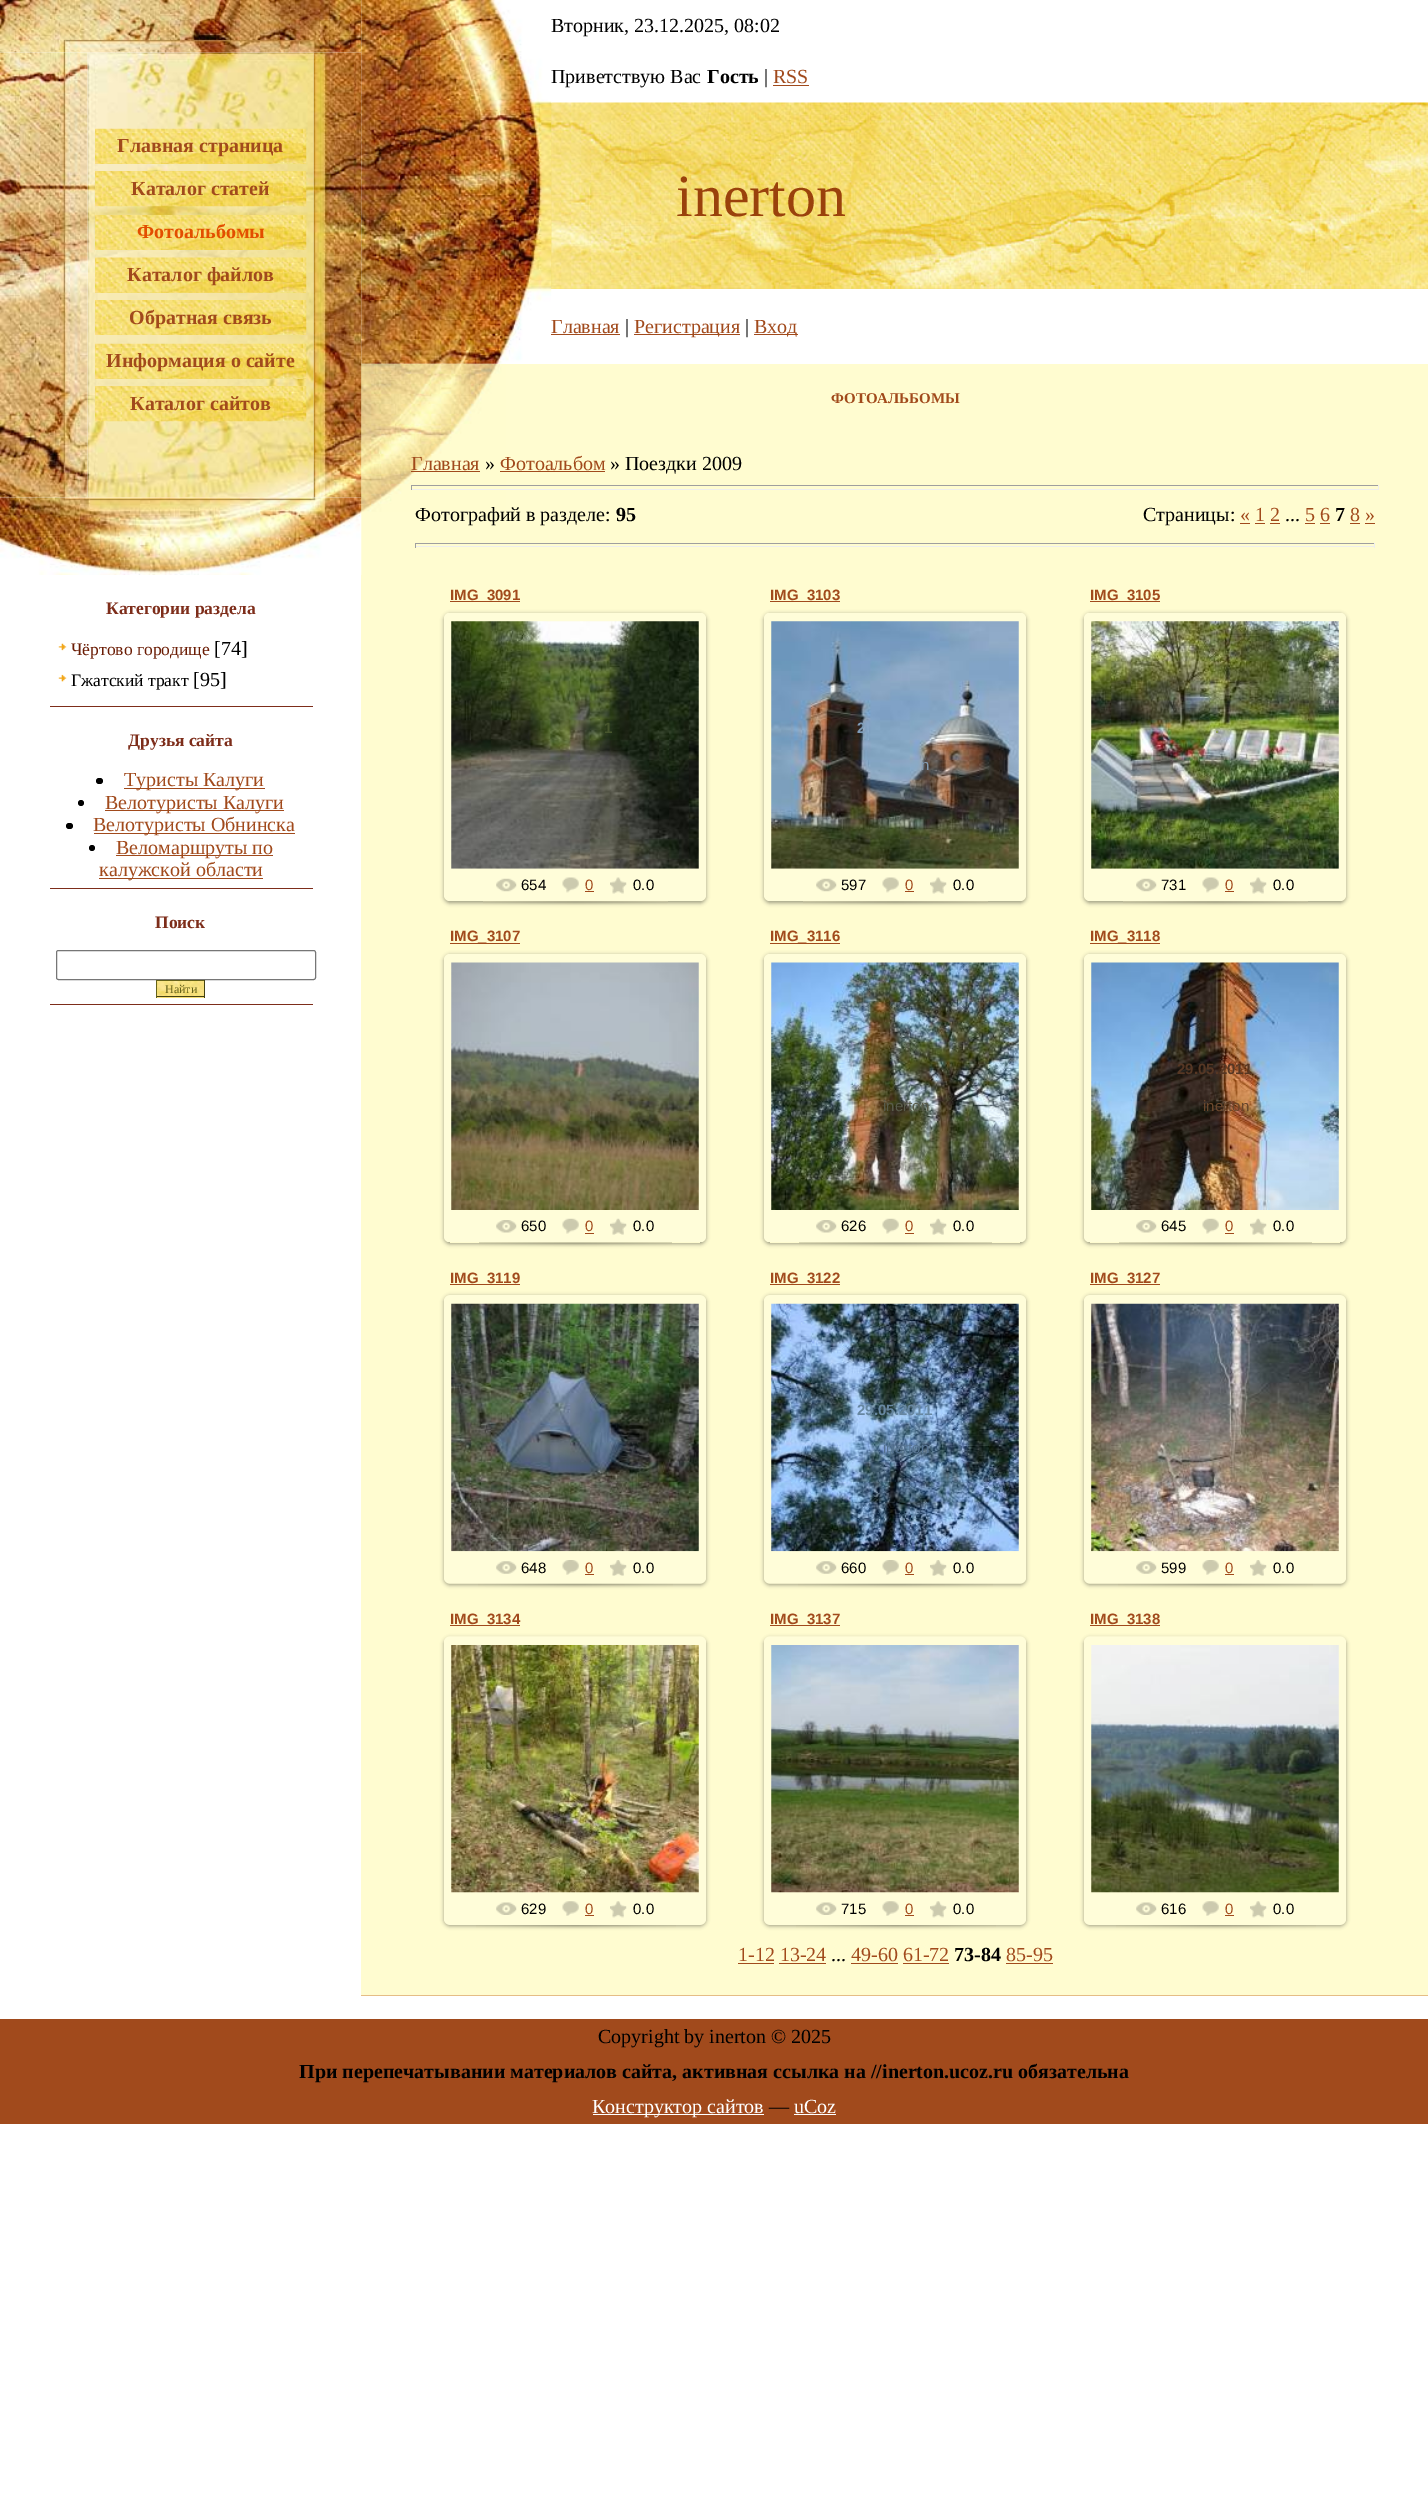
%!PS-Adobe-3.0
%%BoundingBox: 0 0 1428 2520
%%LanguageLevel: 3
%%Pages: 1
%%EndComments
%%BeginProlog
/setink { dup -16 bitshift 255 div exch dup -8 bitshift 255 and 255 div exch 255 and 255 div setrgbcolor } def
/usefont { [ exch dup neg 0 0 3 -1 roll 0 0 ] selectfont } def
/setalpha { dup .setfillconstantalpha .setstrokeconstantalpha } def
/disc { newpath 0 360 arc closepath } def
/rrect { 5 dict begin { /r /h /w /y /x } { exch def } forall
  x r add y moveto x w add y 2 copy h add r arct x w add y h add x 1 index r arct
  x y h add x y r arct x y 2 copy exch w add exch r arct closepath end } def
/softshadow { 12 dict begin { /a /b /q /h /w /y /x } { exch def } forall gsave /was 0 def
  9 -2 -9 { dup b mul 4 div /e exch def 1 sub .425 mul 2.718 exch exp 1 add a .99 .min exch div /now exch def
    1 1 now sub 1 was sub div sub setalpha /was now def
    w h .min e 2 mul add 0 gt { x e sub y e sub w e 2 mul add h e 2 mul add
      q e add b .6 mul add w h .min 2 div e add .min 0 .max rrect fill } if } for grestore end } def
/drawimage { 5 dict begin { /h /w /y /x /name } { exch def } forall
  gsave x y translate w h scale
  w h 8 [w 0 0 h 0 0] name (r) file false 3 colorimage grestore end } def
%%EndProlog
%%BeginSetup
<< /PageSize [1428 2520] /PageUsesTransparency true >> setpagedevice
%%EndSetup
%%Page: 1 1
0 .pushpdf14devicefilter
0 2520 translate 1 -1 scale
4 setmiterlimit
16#FFFFFF setink
0 0 1428 2520 rectfill
(img3.raw) 87 52 227 446 drawimage
(img1.raw) 0 0 362 53 drawimage
(img2.raw) 0 52 88 446 drawimage
(img4.raw) 95 128 212 36 drawimage
/LiberationSerif-Bold 20 usefont
16#A14A1C setink
117 152 moveto (Главная страница) show
(img5.raw) 95 171 212 36 drawimage
131 195 moveto (Каталог статей) show
(img6.raw) 95 215 212 35 drawimage
16#E34E00 setink
137 238 moveto (Фотоальбомы) show
16#F2DA6C setink
95 292 211 1 rectfill
(img7.raw) 95 257 212 36 drawimage
16#A14A1C setink
127 281 moveto (Каталог файлов) show
(img8.raw) 95 300 212 35 drawimage
129 324 moveto (Обратная связь) show
(img9.raw) 95 343 212 36 drawimage
106 367 moveto (Информация о сайте) show
(img10.raw) 95 386 212 36 drawimage
130 410 moveto (Каталог сайтов) show
16#FFFCD0 setink
361 364 1067 1631 rectfill
(img18.raw) 361 363 145 149 drawimage
(img11.raw) 313 52 49 446 drawimage
(img12.raw) 0 497 362 78 drawimage
16#7D2D1A setink
50 706 263 1 rectfill
/LiberationSerif-Bold 17.5 usefont
106 614 moveto (Категории раздела) show
(img13.raw) 58 643 9 8 drawimage
/LiberationSerif-Regular 17.5 usefont
16#6B1D05 setink
71 655 moveto (Чёртово городище) show
/LiberationSerif-Regular 20 usefont
16#000000 setink
214 655 moveto ([74]) show
(img14.raw) 58 674 9 8 drawimage
/LiberationSerif-Regular 17.5 usefont
71 686 moveto (Гжатский тракт) show
/LiberationSerif-Regular 20 usefont
193 686 moveto ([95]) show
16#7D2D1A setink
50 888 263 1 rectfill
/LiberationSerif-Bold 17.5 usefont
128 746 moveto (Друзья сайта) show
16#000000 setink
96 778 7 6 3 rrect fill
16#A14A1C setink
124 788 141 1 rectfill
/LiberationSerif-Regular 20 usefont
124 786 moveto (Туристы Калуги) show
16#000000 setink
81 803 3 disc fill
16#A14A1C setink
105 810 179 1 rectfill
105 809 moveto (Велотуристы Калуги) show
16#000000 setink
66 823 7 6 3 rrect fill
16#A14A1C setink
94 833 201 1 rectfill
93 831 moveto (Велотуристы Обнинска) show
16#000000 setink
92 848 3 disc fill
16#A14A1C setink
116 855 157 1 rectfill
116 854 moveto (Веломаршруты по) show
99 878 164 1 rectfill
99 876 moveto (калужской области) show
16#7D2D1A setink
50 1004 263 1 rectfill
/LiberationSerif-Bold 17.5 usefont
155 928 moveto (Поиск) show
16#767676 setink
56.5 950.5 259 29 2 rrect stroke
16#F2DA6C setink
157 997 47 1 rectfill
(img15.raw) 157 981 47 17 drawimage
[
    [156 980 49 1 16#656219]
    [204 980 1 18 16#434111]
    [156 996 49 1 16#434111]
    [156 980 1 18 16#656219]
] { aload pop setink rectfill } forall
/LiberationSerif-Regular 12 usefont
165 993 moveto (Найти) show
16#F2DA6C setink
551 103 877 186 rectfill
(img17.raw) 551 102 877 187 drawimage
(img16.raw) 361 0 191 364 drawimage
/LiberationSerif-Regular 20 usefont
16#000000 setink
551 32 moveto (Вторник, 23.12.2025, 08:02) show
551 83 moveto (Приветствую Вас) show
/LiberationSerif-Bold 20 usefont
707 83 moveto (Гость) show
/LiberationSerif-Regular 20 usefont
764 83 moveto (|) show
16#A14A1C setink
773 83 moveto (RSS) show
773 85 36 1 rectfill
/LiberationSerif-Regular 60 usefont
16#9A420C setink
676 216 moveto (inerton) show
/LiberationSerif-Regular 20 usefont
16#A14A1C setink
551 333 moveto (Главная) show
551 334 69 1 rectfill
16#000000 setink
625 333 moveto (|) show
16#A14A1C setink
634 334 106 1 rectfill
634 333 moveto (Регистрация) show
16#000000 setink
745 333 moveto (|) show
16#A14A1C setink
754 334 44 1 rectfill
754 333 moveto (Вход) show
16#E5BD85 setink
361 1995 1067 1 rectfill
/LiberationSerif-Bold 15 usefont
16#A14A1C setink
831 403 moveto (ФОТОАЛЬБОМЫ) show
/LiberationSerif-Regular 20 usefont
411 470 moveto (Главная) show
411 471 69 1 rectfill
16#000000 setink
485 470 moveto (») show
16#A14A1C setink
500 470 moveto (Фотоальбом) show
500 471 105 1 rectfill
16#000000 setink
610 470 moveto (» Поездки 2009) show
[
    [411 485 968 1 16#9F9F9F]
    [1378 485 1 5 16#EEEEEE]
    [411 489 968 1 16#EEEEEE]
    [411 485 1 5 16#9F9F9F]
] { aload pop setink rectfill } forall
16#000000 setink
415 521 moveto (Фотографий в разделе:) show
/LiberationSerif-Bold 20 usefont
616 521 moveto (95) show
/LiberationSerif-Regular 20 usefont
1143 521 moveto (Страницы:) show
16#A14A1C setink
1240 521 moveto (« 1 2) show
1240 523 10 1 rectfill
1255 523 10 1 rectfill
16#000000 setink
1285 521 moveto (...) show
16#A14A1C setink
1270 523 10 1 rectfill
1305 523 10 1 rectfill
1305 521 moveto (5 6) show
1320 523 10 1 rectfill
/LiberationSerif-Bold 20 usefont
16#000000 setink
1335 521 moveto (7) show
/LiberationSerif-Regular 20 usefont
16#A14A1C setink
1350 521 moveto (8 ») show
[
    [1350 523 10 1 16#A14A1C]
    [1365 523 10 1 16#A14A1C]
    [415 543 960 1 16#9F9F9F]
    [1374 543 1 5 16#EEEEEE]
    [415 546 960 1 16#EEEEEE]
    [415 543 1 5 16#9F9F9F]
    [450 601 70 1 16#A14A1C]
] { aload pop setink rectfill } forall
/LiberationSans-Bold 15 usefont
450 600 moveto (IMG_3091) show
gsave
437 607 moveto 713 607 lineto 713 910 lineto 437 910 lineto closepath 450 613 moveto 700 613 lineto 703.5 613 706 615.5 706 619 curveto 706 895 lineto 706 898.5 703.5 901 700 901 curveto 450 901 lineto 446.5 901 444 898.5 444 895 curveto 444 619 lineto 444 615.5 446.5 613 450 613 curveto closepath eoclip newpath
16#000000 setink
444 614 262 289 6 2 0.37 softshadow
grestore
(img19.raw) 444 613 262 288 drawimage
(img20.raw) 451 621 248 248 drawimage
16#47552D setink
604 733 moveto (1) show
(img21.raw) 496 878 21 14 drawimage
/LiberationSans-Regular 15 usefont
16#000000 setink
521 890 moveto (654) show
(img22.raw) 562 877 17 16 drawimage
16#A14A1C setink
585 890 moveto (0) show
585 891 9 1 rectfill
(img23.raw) 610 877 17 17 drawimage
16#000000 setink
633 890 moveto (0.0) show
(img24.raw) 483 901 185 4 drawimage
16#A14A1C setink
770 601 70 1 rectfill
/LiberationSans-Bold 15 usefont
770 600 moveto (IMG_3103) show
gsave
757 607 moveto 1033 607 lineto 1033 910 lineto 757 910 lineto closepath 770 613 moveto 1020 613 lineto 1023.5 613 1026 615.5 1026 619 curveto 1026 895 lineto 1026 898.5 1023.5 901 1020 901 curveto 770 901 lineto 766.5 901 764 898.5 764 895 curveto 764 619 lineto 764 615.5 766.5 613 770 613 curveto closepath eoclip newpath
16#000000 setink
764 614 262 289 6 2 0.37 softshadow
grestore
(img19.raw) 764 613 262 288 drawimage
(img25.raw) 771 621 248 248 drawimage
16#7F9DB9 setink
857 733 moveto (2) show
/LiberationSans-Regular 15 usefont
16#829AB1 setink
921 770 moveto (n) show
(img21.raw) 816 878 21 14 drawimage
16#000000 setink
841 890 moveto (597) show
(img26.raw) 882 877 17 16 drawimage
16#A14A1C setink
905 890 moveto (0) show
905 891 9 1 rectfill
(img27.raw) 930 877 17 17 drawimage
16#000000 setink
953 890 moveto (0.0) show
(img24.raw) 803 901 185 4 drawimage
16#A14A1C setink
1090 601 70 1 rectfill
/LiberationSans-Bold 15 usefont
1090 600 moveto (IMG_3105) show
gsave
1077 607 moveto 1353 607 lineto 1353 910 lineto 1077 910 lineto closepath 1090 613 moveto 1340 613 lineto 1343.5 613 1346 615.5 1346 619 curveto 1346 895 lineto 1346 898.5 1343.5 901 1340 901 curveto 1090 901 lineto 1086.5 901 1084 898.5 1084 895 curveto 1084 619 lineto 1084 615.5 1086.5 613 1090 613 curveto closepath eoclip newpath
16#000000 setink
1084 614 262 289 6 2 0.37 softshadow
grestore
(img19.raw) 1084 613 262 288 drawimage
(img28.raw) 1091 621 248 248 drawimage
16#8E9D55 setink
1215 733 moveto (.) show
(img21.raw) 1136 878 21 14 drawimage
/LiberationSans-Regular 15 usefont
16#000000 setink
1161 890 moveto (731) show
(img26.raw) 1202 877 17 16 drawimage
16#A14A1C setink
1225 890 moveto (0) show
1225 891 9 1 rectfill
(img23.raw) 1250 877 17 17 drawimage
16#000000 setink
1273 890 moveto (0.0) show
(img24.raw) 1123 901 185 4 drawimage
/LiberationSans-Bold 15 usefont
16#A14A1C setink
450 941 moveto (IMG_3107) show
450 943 70 1 rectfill
gsave
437 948 moveto 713 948 lineto 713 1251 lineto 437 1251 lineto closepath 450 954 moveto 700 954 lineto 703.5 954 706 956.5 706 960 curveto 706 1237 lineto 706 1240.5 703.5 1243 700 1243 curveto 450 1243 lineto 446.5 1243 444 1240.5 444 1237 curveto 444 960 lineto 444 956.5 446.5 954 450 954 curveto closepath eoclip newpath
16#000000 setink
444 955 262 289 6 2 0.37 softshadow
grestore
(img29.raw) 444 954 262 288 drawimage
(img30.raw) 451 962 248 248 drawimage
(img31.raw) 496 1220 21 13 drawimage
/LiberationSans-Regular 15 usefont
16#000000 setink
521 1231 moveto (650) show
(img32.raw) 562 1218 17 16 drawimage
16#A14A1C setink
585 1231 moveto (0) show
585 1233 9 1 rectfill
(img33.raw) 610 1218 17 17 drawimage
16#000000 setink
633 1231 moveto (0.0) show
(img34.raw) 479 1242 193 5 drawimage
/LiberationSans-Bold 15 usefont
16#A14A1C setink
770 941 moveto (IMG_3116) show
770 943 70 1 rectfill
gsave
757 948 moveto 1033 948 lineto 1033 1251 lineto 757 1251 lineto closepath 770 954 moveto 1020 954 lineto 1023.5 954 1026 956.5 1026 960 curveto 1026 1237 lineto 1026 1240.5 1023.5 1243 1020 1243 curveto 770 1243 lineto 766.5 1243 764 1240.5 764 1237 curveto 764 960 lineto 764 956.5 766.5 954 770 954 curveto closepath eoclip newpath
16#000000 setink
764 955 262 289 6 2 0.37 softshadow
grestore
(img29.raw) 764 954 262 288 drawimage
(img35.raw) 771 962 248 248 drawimage
/LiberationSans-Regular 15 usefont
16#585B4A setink
883 1111 moveto (inerton) show
(img31.raw) 816 1220 21 13 drawimage
16#000000 setink
841 1231 moveto (626) show
(img36.raw) 882 1218 17 16 drawimage
16#A14A1C setink
905 1231 moveto (0) show
905 1233 9 1 rectfill
(img37.raw) 930 1218 17 17 drawimage
16#000000 setink
953 1231 moveto (0.0) show
(img34.raw) 799 1242 193 5 drawimage
/LiberationSans-Bold 15 usefont
16#A14A1C setink
1090 941 moveto (IMG_3118) show
1090 943 70 1 rectfill
gsave
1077 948 moveto 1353 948 lineto 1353 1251 lineto 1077 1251 lineto closepath 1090 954 moveto 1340 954 lineto 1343.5 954 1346 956.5 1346 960 curveto 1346 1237 lineto 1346 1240.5 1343.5 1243 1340 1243 curveto 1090 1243 lineto 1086.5 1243 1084 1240.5 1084 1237 curveto 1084 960 lineto 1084 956.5 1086.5 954 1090 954 curveto closepath eoclip newpath
16#000000 setink
1084 955 262 289 6 2 0.37 softshadow
grestore
(img29.raw) 1084 954 262 288 drawimage
(img38.raw) 1091 962 248 248 drawimage
16#563724 setink
1177 1074 moveto (29.05.2011) show
/LiberationSans-Regular 15 usefont
16#6A472C setink
1203 1111 moveto (inerton) show
(img31.raw) 1136 1220 21 13 drawimage
16#000000 setink
1161 1231 moveto (645) show
(img36.raw) 1202 1218 17 16 drawimage
16#A14A1C setink
1225 1231 moveto (0) show
1225 1233 9 1 rectfill
(img33.raw) 1250 1218 17 17 drawimage
16#000000 setink
1273 1231 moveto (0.0) show
(img34.raw) 1119 1242 193 5 drawimage
16#A14A1C setink
450 1284 70 1 rectfill
/LiberationSans-Bold 15 usefont
450 1283 moveto (IMG_3119) show
gsave
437 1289 moveto 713 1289 lineto 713 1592 lineto 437 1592 lineto closepath 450 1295 moveto 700 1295 lineto 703.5 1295 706 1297.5 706 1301 curveto 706 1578 lineto 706 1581.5 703.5 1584 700 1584 curveto 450 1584 lineto 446.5 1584 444 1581.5 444 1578 curveto 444 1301 lineto 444 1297.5 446.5 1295 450 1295 curveto closepath eoclip newpath
16#000000 setink
444 1296 262 289 6 2 0.37 softshadow
grestore
(img39.raw) 444 1295 262 289 drawimage
(img40.raw) 451 1303 248 249 drawimage
(img41.raw) 496 1561 21 13 drawimage
/LiberationSans-Regular 15 usefont
16#000000 setink
521 1573 moveto (648) show
(img42.raw) 562 1560 17 15 drawimage
16#A14A1C setink
585 1573 moveto (0) show
585 1574 9 1 rectfill
(img43.raw) 610 1560 17 16 drawimage
16#000000 setink
633 1573 moveto (0.0) show
(img44.raw) 478 1583 195 5 drawimage
16#A14A1C setink
770 1284 70 1 rectfill
/LiberationSans-Bold 15 usefont
770 1283 moveto (IMG_3122) show
gsave
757 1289 moveto 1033 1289 lineto 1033 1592 lineto 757 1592 lineto closepath 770 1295 moveto 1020 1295 lineto 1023.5 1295 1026 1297.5 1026 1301 curveto 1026 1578 lineto 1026 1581.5 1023.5 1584 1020 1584 curveto 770 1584 lineto 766.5 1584 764 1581.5 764 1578 curveto 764 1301 lineto 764 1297.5 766.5 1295 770 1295 curveto closepath eoclip newpath
16#000000 setink
764 1296 262 289 6 2 0.37 softshadow
grestore
(img39.raw) 764 1295 262 289 drawimage
(img45.raw) 771 1303 248 249 drawimage
16#6787A1 setink
857 1415 moveto (29.05.2011) show
/LiberationSans-Regular 15 usefont
16#567391 setink
883 1453 moveto (inerton) show
(img41.raw) 816 1561 21 13 drawimage
16#000000 setink
841 1573 moveto (660) show
(img46.raw) 882 1560 17 15 drawimage
16#A14A1C setink
905 1573 moveto (0) show
905 1574 9 1 rectfill
(img47.raw) 930 1560 17 16 drawimage
16#000000 setink
953 1573 moveto (0.0) show
(img44.raw) 798 1583 195 5 drawimage
16#A14A1C setink
1090 1284 70 1 rectfill
/LiberationSans-Bold 15 usefont
1090 1283 moveto (IMG_3127) show
gsave
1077 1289 moveto 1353 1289 lineto 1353 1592 lineto 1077 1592 lineto closepath 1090 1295 moveto 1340 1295 lineto 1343.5 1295 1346 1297.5 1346 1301 curveto 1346 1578 lineto 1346 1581.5 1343.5 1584 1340 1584 curveto 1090 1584 lineto 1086.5 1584 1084 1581.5 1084 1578 curveto 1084 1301 lineto 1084 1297.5 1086.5 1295 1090 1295 curveto closepath eoclip newpath
16#000000 setink
1084 1296 262 289 6 2 0.37 softshadow
grestore
(img39.raw) 1084 1295 262 289 drawimage
(img48.raw) 1091 1303 248 249 drawimage
(img41.raw) 1136 1561 21 13 drawimage
/LiberationSans-Regular 15 usefont
16#000000 setink
1161 1573 moveto (599) show
(img46.raw) 1202 1560 17 15 drawimage
16#A14A1C setink
1225 1573 moveto (0) show
1225 1574 9 1 rectfill
(img43.raw) 1250 1560 17 16 drawimage
16#000000 setink
1273 1573 moveto (0.0) show
(img49.raw) 1118 1583 195 5 drawimage
16#A14A1C setink
450 1625 70 1 rectfill
/LiberationSans-Bold 15 usefont
450 1624 moveto (IMG_3134) show
gsave
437 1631 moveto 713 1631 lineto 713 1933 lineto 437 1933 lineto closepath 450 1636 moveto 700 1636 lineto 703.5 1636 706 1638.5 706 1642 curveto 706 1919 lineto 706 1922.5 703.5 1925 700 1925 curveto 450 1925 lineto 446.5 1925 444 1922.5 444 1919 curveto 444 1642 lineto 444 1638.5 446.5 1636 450 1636 curveto closepath eoclip newpath
16#000000 setink
444 1638 262 288 6 2 0.37 softshadow
grestore
(img50.raw) 444 1636 262 289 drawimage
(img51.raw) 451 1645 248 248 drawimage
(img52.raw) 496 1902 21 13 drawimage
/LiberationSans-Regular 15 usefont
16#000000 setink
521 1914 moveto (629) show
(img53.raw) 562 1901 17 15 drawimage
16#A14A1C setink
585 1914 moveto (0) show
585 1915 9 1 rectfill
(img54.raw) 610 1901 17 17 drawimage
16#000000 setink
633 1914 moveto (0.0) show
(img55.raw) 476 1925 200 4 drawimage
16#A14A1C setink
770 1625 70 1 rectfill
/LiberationSans-Bold 15 usefont
770 1624 moveto (IMG_3137) show
gsave
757 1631 moveto 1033 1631 lineto 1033 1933 lineto 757 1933 lineto closepath 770 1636 moveto 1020 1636 lineto 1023.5 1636 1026 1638.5 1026 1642 curveto 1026 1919 lineto 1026 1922.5 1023.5 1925 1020 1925 curveto 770 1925 lineto 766.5 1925 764 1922.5 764 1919 curveto 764 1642 lineto 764 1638.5 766.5 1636 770 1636 curveto closepath eoclip newpath
16#000000 setink
764 1638 262 288 6 2 0.37 softshadow
grestore
(img50.raw) 764 1636 262 289 drawimage
(img56.raw) 771 1645 248 248 drawimage
(img52.raw) 816 1902 21 13 drawimage
/LiberationSans-Regular 15 usefont
16#000000 setink
841 1914 moveto (715) show
(img57.raw) 882 1901 17 15 drawimage
16#A14A1C setink
905 1914 moveto (0) show
905 1915 9 1 rectfill
(img58.raw) 930 1901 17 17 drawimage
16#000000 setink
953 1914 moveto (0.0) show
(img55.raw) 796 1925 200 4 drawimage
16#A14A1C setink
1090 1625 70 1 rectfill
/LiberationSans-Bold 15 usefont
1090 1624 moveto (IMG_3138) show
gsave
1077 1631 moveto 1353 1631 lineto 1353 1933 lineto 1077 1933 lineto closepath 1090 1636 moveto 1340 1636 lineto 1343.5 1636 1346 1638.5 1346 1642 curveto 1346 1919 lineto 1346 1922.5 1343.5 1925 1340 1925 curveto 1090 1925 lineto 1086.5 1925 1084 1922.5 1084 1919 curveto 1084 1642 lineto 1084 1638.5 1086.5 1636 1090 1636 curveto closepath eoclip newpath
16#000000 setink
1084 1638 262 288 6 2 0.37 softshadow
grestore
(img50.raw) 1084 1636 262 289 drawimage
(img59.raw) 1091 1645 248 248 drawimage
(img52.raw) 1136 1902 21 13 drawimage
/LiberationSans-Regular 15 usefont
16#000000 setink
1161 1914 moveto (616) show
(img57.raw) 1202 1901 17 15 drawimage
16#A14A1C setink
1225 1914 moveto (0) show
1225 1915 9 1 rectfill
(img54.raw) 1250 1901 17 17 drawimage
16#000000 setink
1273 1914 moveto (0.0) show
(img55.raw) 1116 1925 200 4 drawimage
/LiberationSerif-Regular 20 usefont
16#A14A1C setink
738 1961 moveto (1-12 13-24) show
738 1963 36 1 rectfill
16#000000 setink
831 1961 moveto (...) show
16#A14A1C setink
779 1963 47 1 rectfill
851 1963 47 1 rectfill
851 1961 moveto (49-60 61-72) show
903 1963 46 1 rectfill
/LiberationSerif-Bold 20 usefont
16#000000 setink
954 1961 moveto (73-84) show
/LiberationSerif-Regular 20 usefont
16#A14A1C setink
1006 1961 moveto (85-95) show
1006 1963 47 1 rectfill
0 2019 1428 105 rectfill
16#000000 setink
598 2043 moveto (Copyright by inerton © 2025) show
/LiberationSerif-Bold 20 usefont
299 2078 moveto (При перепечатывании материалов сайта, активная ссылка на //inerton.ucoz.ru обязательна) show
16#FFFFFF setink
593 2114 171 1 rectfill
/LiberationSerif-Regular 20 usefont
592 2113 moveto (Конструктор сайтов) show
16#000000 setink
769 2113 moveto (—) show
16#FFFFFF setink
794 2113 moveto (uCoz) show
794 2114 42 1 rectfill
.poppdf14devicefilter showpage
%%EOF
